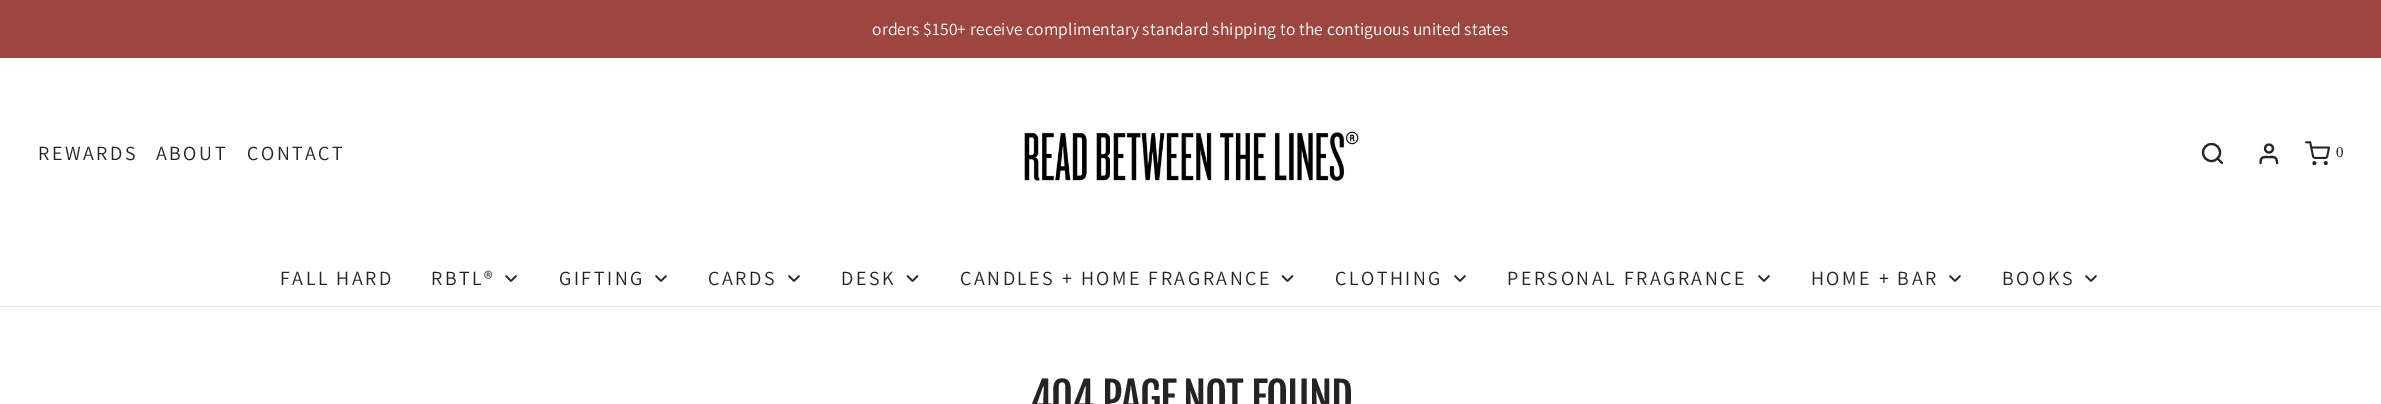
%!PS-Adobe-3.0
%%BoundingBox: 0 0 2381 404
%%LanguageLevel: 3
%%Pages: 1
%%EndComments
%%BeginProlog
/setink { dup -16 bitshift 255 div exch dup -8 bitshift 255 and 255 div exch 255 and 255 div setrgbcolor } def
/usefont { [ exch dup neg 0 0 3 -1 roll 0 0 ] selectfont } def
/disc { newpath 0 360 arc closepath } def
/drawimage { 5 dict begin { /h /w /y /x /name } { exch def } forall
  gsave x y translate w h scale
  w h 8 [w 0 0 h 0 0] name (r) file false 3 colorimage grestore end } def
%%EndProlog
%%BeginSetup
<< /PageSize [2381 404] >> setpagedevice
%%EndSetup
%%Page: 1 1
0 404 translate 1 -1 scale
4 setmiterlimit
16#FFFFFF setink
0 0 2381 404 rectfill
16#9D463F setink
0 0 2381 58 rectfill
/Assistant-Regular 17.5 usefont
16#FFFFFF setink
872 35 moveto 0.12 0 (orders $150+ receive complimentary standard shipping to the contiguous united states) ashow
16#E9E9E9 setink
0 306 2381 1 rectfill
/Assistant-Regular 20 usefont
16#242424 setink
38 160 moveto 2.5 0 (REWARDS) ashow
156 160 moveto 2.5 0 (ABOUT) ashow
247 160 moveto 2.5 0 (CONTACT) ashow
(img1.raw) 1024 131 335 50 drawimage
2.1 setlinewidth
2211.5 152.5 8.5 disc stroke
1 setlinecap
1 setlinejoin
2222 163 moveto 2217.5 158.5 lineto 2277 163 moveto 2277 156.5 2274.5 157 2269 157 curveto 2263 157 2260.5 156.5 2260.5 163 curveto stroke
0 setlinecap
0 setlinejoin
2269 148.5 4 disc stroke
(img2.raw) 2305 141 25 25 drawimage
/LiberationSerif-Regular 15 usefont
2336 157 moveto (0) show
/Assistant-Regular 20 usefont
280 285 moveto 2.5 0 (FALL HARD) ashow
431 285 moveto 2.5 0 (RBTL®) ashow
1.7 setlinewidth
1 setlinecap
1 setlinejoin
506 276 moveto 511 281 lineto 516 276 lineto stroke
559 285 moveto 2.5 0 (GIFTING) ashow
656 276 moveto 661 281 lineto 666 276 lineto stroke
708 285 moveto 2.5 0 (CARDS) ashow
789 276 moveto 794 281 lineto 799 276 lineto stroke
841 285 moveto 2.5 0 (DESK) ashow
907.5 276 moveto 912.5 281 lineto 917.5 276 lineto stroke
960 285 moveto 2.5 0 (CANDLES + HOME FRAGRANCE) ashow
1282.5 276 moveto 1287.5 281 lineto 1292.5 276 lineto stroke
1335 285 moveto 2.5 0 (CLOTHING) ashow
1455 276 moveto 1460 281 lineto 1465 276 lineto stroke
1507 285 moveto 2.5 0 (PERSONAL FRAGRANCE) ashow
1759 276 moveto 1764 281 lineto 1769 276 lineto stroke
1811 285 moveto 2.5 0 (HOME + BAR) ashow
1950 276 moveto 1955 281 lineto 1960 276 lineto stroke
2002 285 moveto 2.5 0 (BOOKS) ashow
2086 276 moveto 2091 281 lineto 2096 276 lineto stroke
/FjallaOne-Regular 42.5 usefont
1030 414 moveto -1.25 0 (404 PAGE NOT FOUND) ashow
showpage
%%EOF
